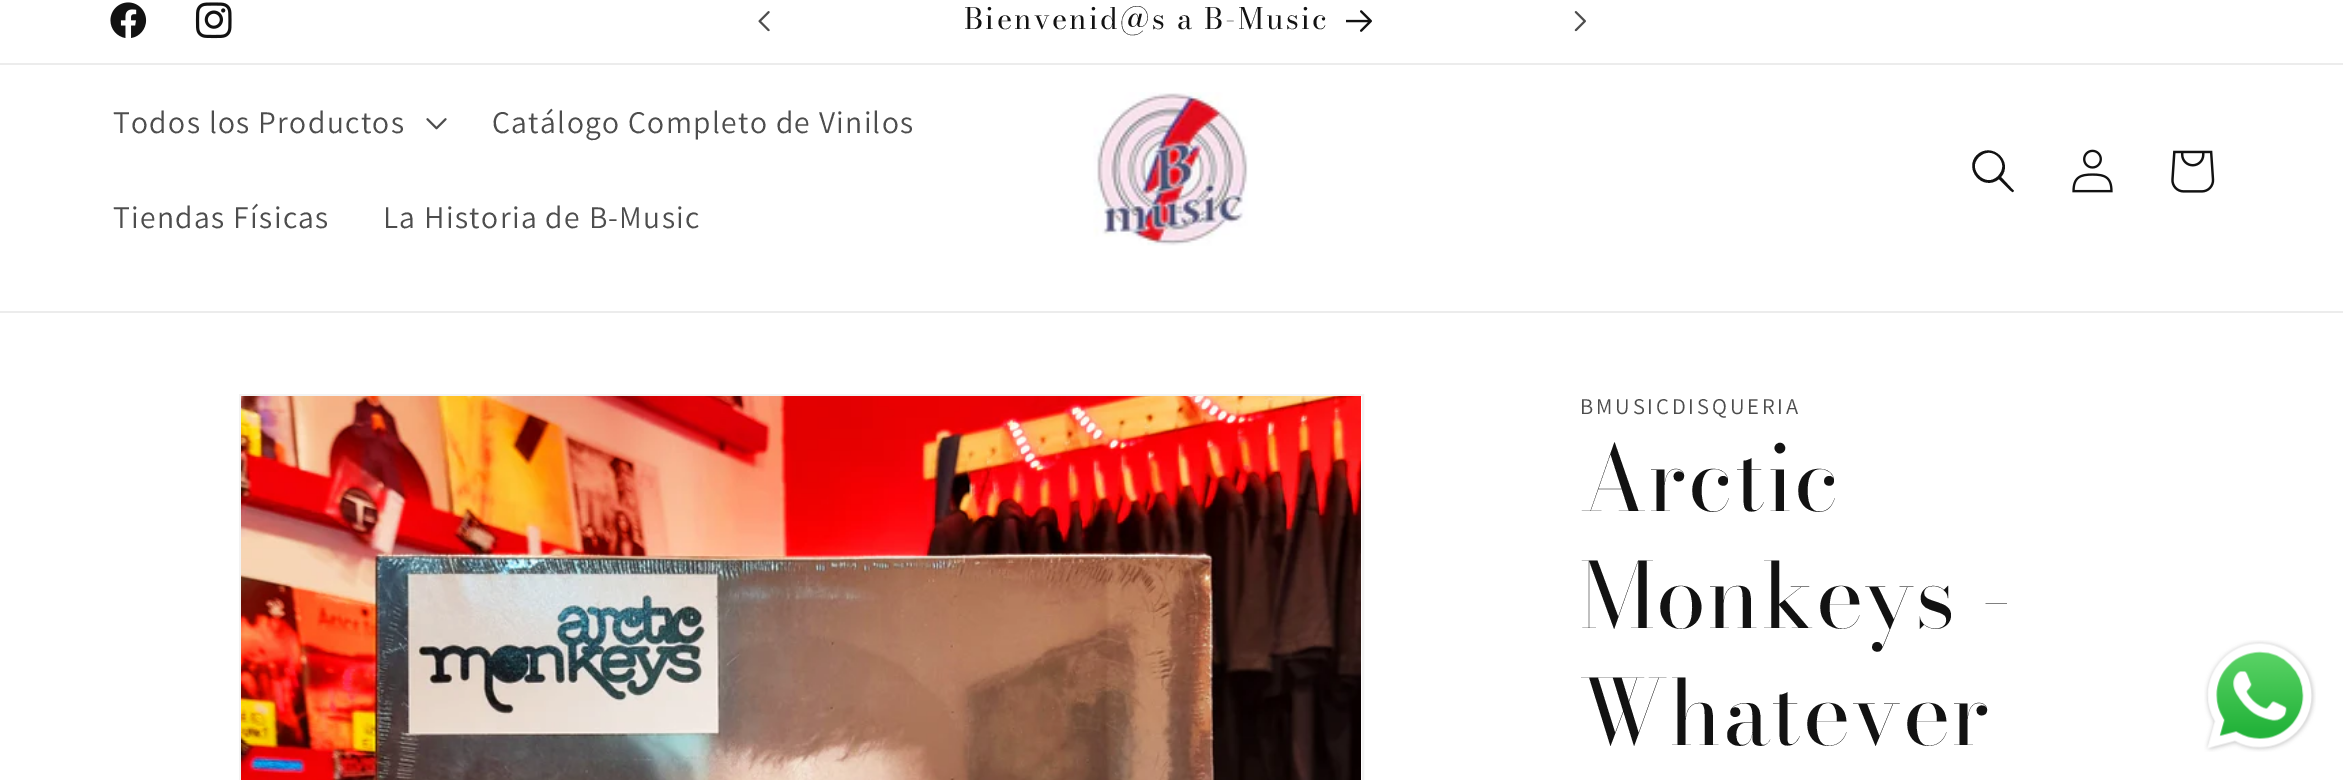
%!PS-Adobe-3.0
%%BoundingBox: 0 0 2343 780
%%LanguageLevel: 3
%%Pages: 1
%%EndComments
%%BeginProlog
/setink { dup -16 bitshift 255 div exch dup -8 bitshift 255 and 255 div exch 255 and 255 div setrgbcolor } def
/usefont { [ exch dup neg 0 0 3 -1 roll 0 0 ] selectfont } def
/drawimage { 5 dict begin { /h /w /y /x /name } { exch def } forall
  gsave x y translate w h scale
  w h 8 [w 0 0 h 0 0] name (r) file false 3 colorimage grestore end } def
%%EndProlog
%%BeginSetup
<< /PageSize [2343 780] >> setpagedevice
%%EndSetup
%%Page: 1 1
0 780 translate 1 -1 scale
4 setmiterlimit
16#FFFFFF setink
0 0 2343 780 rectfill
16#ECECEC setink
0 63 2343 2 rectfill
(img1.raw) 110 2 37 36 drawimage
(img2.raw) 195 2 37 37 drawimage
(img3.raw) 758 11 12 21 drawimage
/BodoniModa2-Regular 29.25 usefont
16#121212 setink
964 29 moveto 2.25 0 (Bienvenid@s a B-Music) ashow
(img4.raw) 1346 10 26 22 drawimage
(img5.raw) 1574 11 12 21 drawimage
16#ECECEC setink
0 311 2343 2 rectfill
/Assistant-Regular 31.5 usefont
16#4D4D4D setink
113 133 moveto 1.35 0 (Todos los Productos) ashow
(img6.raw) 426 118 21 12 drawimage
492 133 moveto 1.35 0 (Catálogo Completo de Vinilos) ashow
113 228 moveto 1.35 0 (Tiendas Físicas) ashow
383 228 moveto 1.35 0 (La Historia de B-Music) ashow
(img7.raw) 1093 92 155 154 drawimage
16#121212 setink
1998 176 moveto 1986 189 1966 169 1979 157 curveto 1992 144 2011 163 1998 176 curveto closepath 1999 179 moveto 1983 192 1963 169 1977 155 curveto 1992 141 2014 162 2001 177 curveto 2014 191 lineto 2013 192 lineto 2012 193 2001 181 1999 179 curveto closepath eofill
(img8.raw) 2072 149 41 44 drawimage
(img9.raw) 2171 150 44 43 drawimage
16#F3F3F3 setink
2 setlinewidth
240 395 1123 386 rectstroke
(img10.raw) 241 396 1120 384 drawimage
/Assistant-Regular 22.5 usefont
16#4D4D4D setink
1580 414 moveto 2.9 0 (BMUSICDISQUERIA) ashow
/BodoniModa-Regular 90 usefont
16#121212 setink
1580 511 moveto 1.35 0 (Arctic) ashow
1580 628 moveto 1.35 0 (Monkeys -) ashow
1580 745 moveto 1.35 0 (Whatever) ashow
(img11.raw) 2204 640 112 112 drawimage
showpage
%%EOF
